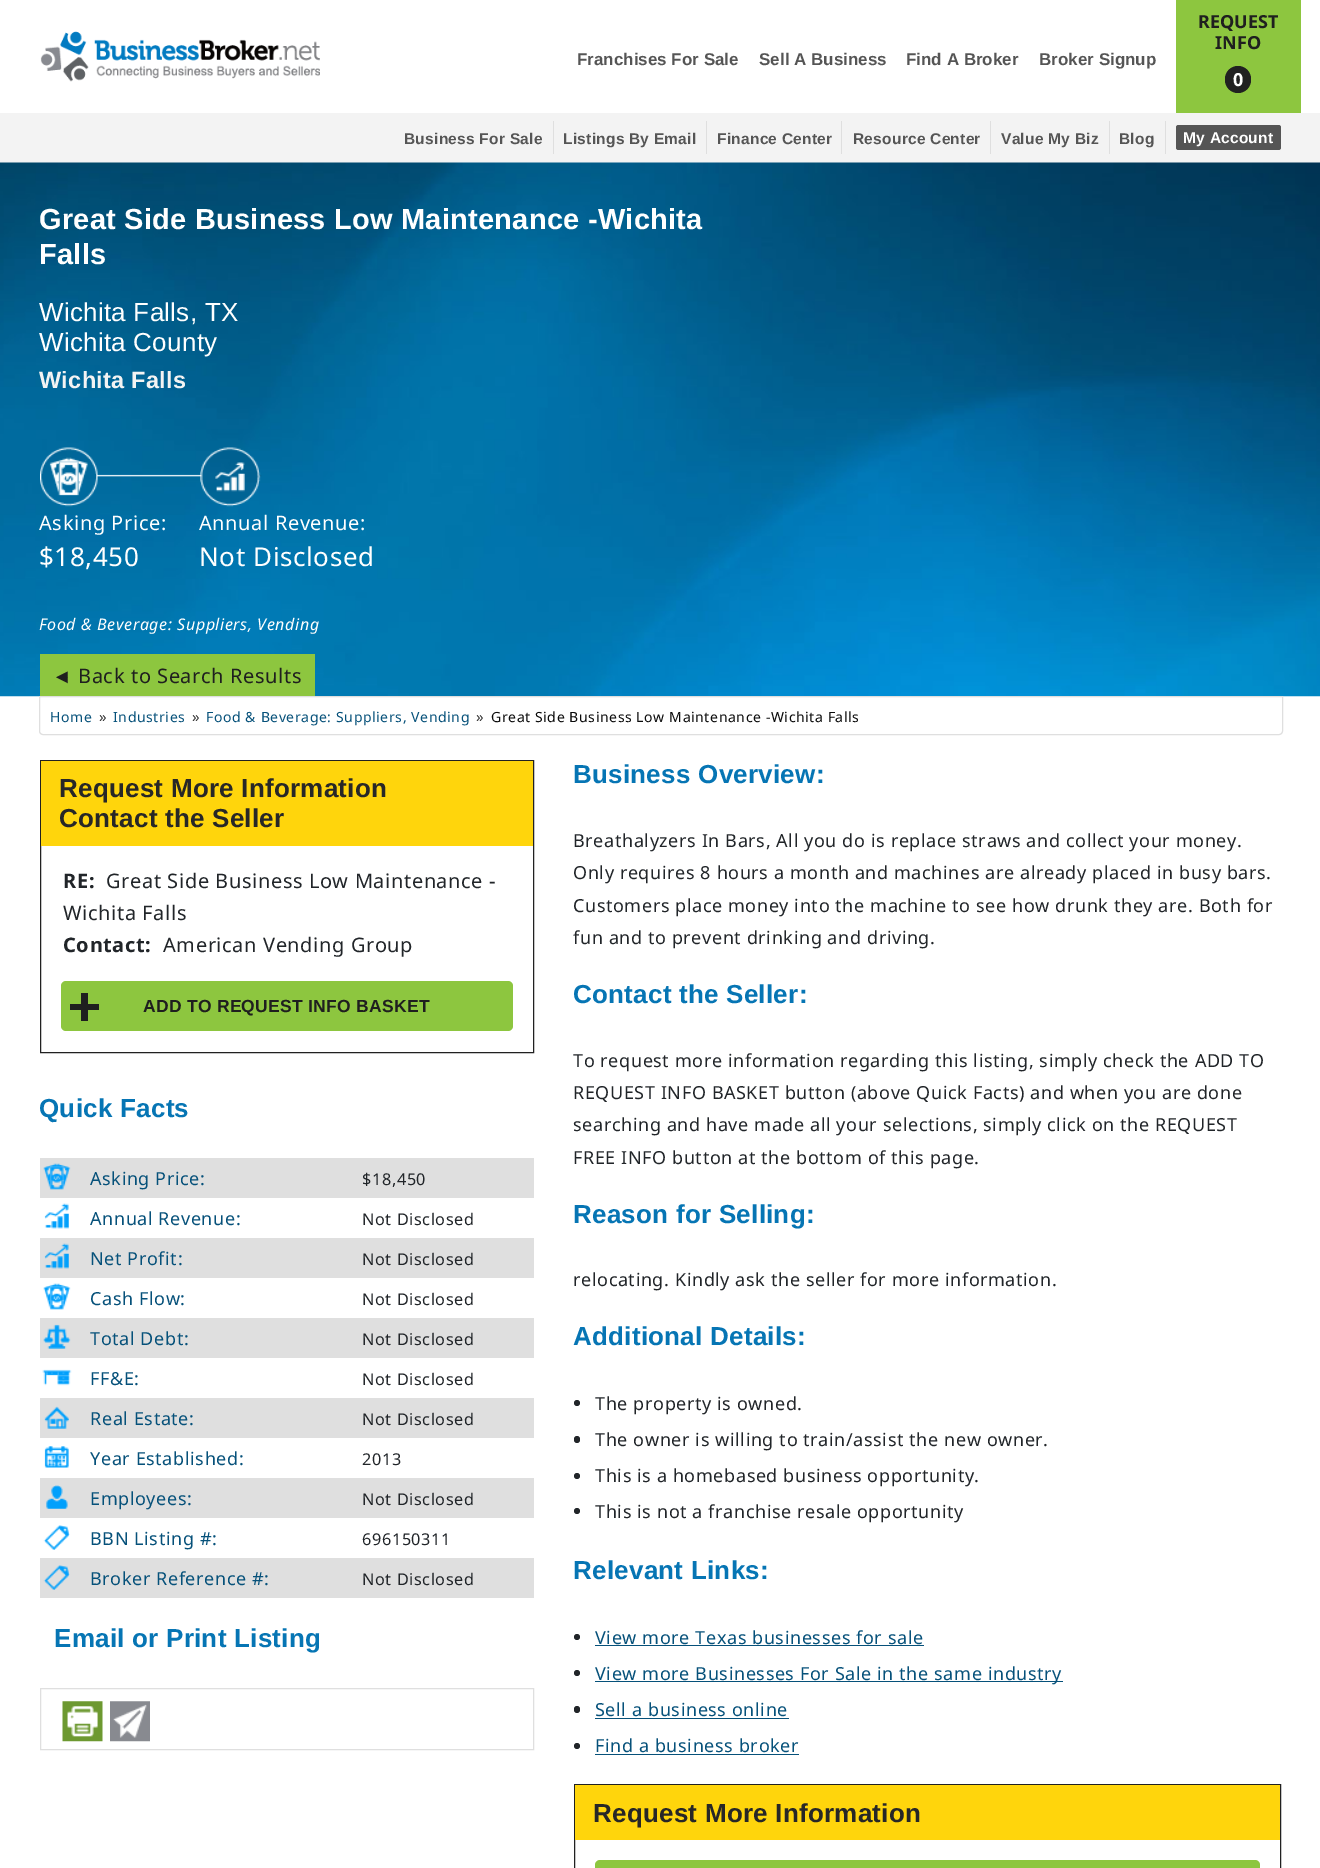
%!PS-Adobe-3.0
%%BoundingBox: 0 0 1320 1868
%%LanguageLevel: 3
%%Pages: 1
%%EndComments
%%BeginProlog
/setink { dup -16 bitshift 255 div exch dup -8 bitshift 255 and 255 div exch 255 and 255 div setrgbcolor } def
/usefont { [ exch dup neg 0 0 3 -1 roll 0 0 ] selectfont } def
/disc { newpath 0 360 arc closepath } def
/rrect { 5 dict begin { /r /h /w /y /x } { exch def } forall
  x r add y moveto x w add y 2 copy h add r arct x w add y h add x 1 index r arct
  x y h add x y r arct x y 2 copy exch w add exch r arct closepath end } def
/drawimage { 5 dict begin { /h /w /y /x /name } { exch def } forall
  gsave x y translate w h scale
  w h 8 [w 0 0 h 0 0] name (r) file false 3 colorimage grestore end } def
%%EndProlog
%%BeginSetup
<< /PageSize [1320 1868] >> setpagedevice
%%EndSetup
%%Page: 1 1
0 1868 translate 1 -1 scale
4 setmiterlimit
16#FFFFFF setink
0 0 1320 1868 rectfill
(img1.raw) 40 31 280 51 drawimage
/LiberationSans-Bold 17 usefont
16#555555 setink
[
    [(Franchises For Sale) 577 65]
    [(Sell A Business) 759 65]
    [(Find A Broker) 906 65]
    [(Broker Signup) 1039 65]
] { aload pop moveto show } forall
16#8DC63F setink
1176 0 125 113 rectfill
/NotoSans-Bold 18 usefont
16#1F1F1F setink
1198 28 moveto (REQUEST) show
1215 49 moveto (INFO) show
16#212121 setink
1225 66 26 27 13 rrect fill
16#FFFFFF setink
1233 86 moveto (0) show
16#F3F3F3 setink
0 113 1320 50 rectfill
16#DFDFDF setink
553 121 1 33 rectfill
/LiberationSans-Bold 15.5 usefont
16#555555 setink
404 144 moveto 0.25 0 (Business For Sale) ashow
16#DFDFDF setink
706 121 1 33 rectfill
16#555555 setink
563 144 moveto 0.25 0 (Listings By Email) ashow
16#DFDFDF setink
841 121 1 33 rectfill
16#555555 setink
717 144 moveto 0.25 0 (Finance Center) ashow
16#DFDFDF setink
990 121 1 33 rectfill
16#555555 setink
853 144 moveto 0.25 0 (Resource Center) ashow
16#DFDFDF setink
1109 121 1 33 rectfill
16#555555 setink
1001 144 moveto 0.25 0 (Value My Biz) ashow
16#DFDFDF setink
1165 121 1 33 rectfill
16#555555 setink
1119 144 moveto 0.25 0 (Blog) ashow
1176 125 105 25 2.5 rrect fill
16#FFFFFF setink
1183 143 moveto 0.25 0 (My Account) ashow
(img2.raw) 0 162 1320 535 drawimage
/LiberationSans-Bold 29 usefont
39 229 moveto 0.25 0 (Great Side Business Low Maintenance -Wichita) ashow
39 264 moveto 0.25 0 (Falls) ashow
/LiberationSans-Regular 26 usefont
39 321 moveto 0.25 0 (Wichita Falls, TX) ashow
39 351 moveto 0.25 0 (Wichita County) ashow
/LiberationSans-Bold 23.5 usefont
16#F3F3F3 setink
39 388 moveto 0.25 0 (Wichita Falls) ashow
(img3.raw) 40 447 160 60 drawimage
/NotoSans-Regular 20 usefont
16#FFFFFF setink
39 530 moveto 0.6 0 (Asking Price:) ashow
/NotoSans-Regular 26 usefont
39 566 moveto 0.6 0 ($18,450) ashow
(img4.raw) 200 447 62 60 drawimage
/NotoSans-Regular 20 usefont
199 530 moveto 0.6 0 (Annual Revenue:) ashow
/NotoSans-Regular 26 usefont
199 566 moveto 0.6 0 (Not Disclosed) ashow
/NotoSans-Italic 16 usefont
39 630 moveto 0.6 0 (Food & Beverage: Suppliers, Vending) ashow
16#8DC63F setink
40 654 275 42 rectfill
/LiberationSans-Regular 20 usefont
16#1F1F1F setink
52 683 moveto 0.6 0 (◄) ashow
/NotoSans-Regular 20 usefont
78 683 moveto 0.6 0 (Back to Search Results) ashow
16#FFFFFF setink
39.5 696.5 moveto 1282.5 696.5 lineto 1282.5 731 lineto 1282.5 733 1281 734.5 1279 734.5 curveto 43 734.5 lineto 41 734.5 39.5 733 39.5 731 curveto closepath gsave fill grestore
16#DFDFDF setink
stroke
/NotoSans-Regular 14 usefont
16#06517A setink
50 722 moveto 0.6 0 (Home) ashow
/NotoSans-Regular 15 usefont
16#333333 setink
99 722 moveto 0.6 0 (») ashow
/NotoSans-Regular 14 usefont
16#06517A setink
113 722 moveto 0.6 0 (Industries) ashow
/NotoSans-Regular 15 usefont
16#333333 setink
192 722 moveto 0.6 0 (») ashow
/NotoSans-Regular 14 usefont
16#06517A setink
206 722 moveto 0.6 0 (Food & Beverage: Suppliers, Vending) ashow
/NotoSans-Regular 15 usefont
16#333333 setink
476 722 moveto 0.6 0 (») ashow
/NotoSans-Regular 14 usefont
16#0A0A0A setink
491 722 moveto 0.6 0 (Great Side Business Low Maintenance -Wichita Falls) ashow
16#212121 setink
40.5 760.5 493 292 rectstroke
16#FFD50C setink
41 761 492 85 rectfill
/LiberationSans-Bold 26 usefont
16#272727 setink
59 797 moveto 0.25 0 (Request More Information) ashow
59 827 moveto 0.25 0 (Contact the Seller) ashow
/NotoSans-Bold 20 usefont
16#212529 setink
63 888 moveto 0.6 0 (RE:) ashow
/NotoSans-Regular 20 usefont
106 888 moveto 0.6 0 (Great Side Business Low Maintenance -) ashow
63 920 moveto 0.6 0 (Wichita Falls) ashow
/NotoSans-Bold 20 usefont
63 952 moveto 0.6 0 (Contact:) ashow
/NotoSans-Regular 20 usefont
163 952 moveto 0.6 0 (American Vending Group) ashow
16#8DC63F setink
61 981 452 50 5 rrect fill
16#1F1F1F setink
81 993 7 28 rectfill
/LiberationSans-Bold 17.5 usefont
143 1012 moveto 0.25 0 (ADD TO REQUEST INFO BASKET) ashow
70 1004 29 6 rectfill
/LiberationSans-Bold 26 usefont
16#0675B4 setink
39 1117 moveto 0.25 0 (Quick Facts) ashow
16#DFDFDF setink
40 1158 494 40 rectfill
(img5.raw) 43 1163 28 27 drawimage
/NotoSans-Regular 18 usefont
16#06517A setink
90 1185 moveto 0.6 0 (Asking Price:) ashow
/NotoSans-Regular 16.25 usefont
16#212529 setink
362 1185 moveto 0.6 0 ($18,450) ashow
(img6.raw) 44 1203 25 26 drawimage
/NotoSans-Regular 18 usefont
16#06517A setink
90 1225 moveto 0.6 0 (Annual Revenue:) ashow
/NotoSans-Regular 16.25 usefont
16#212529 setink
362 1225 moveto 0.6 0 (Not Disclosed) ashow
16#DFDFDF setink
40 1238 494 40 rectfill
(img7.raw) 44 1243 25 26 drawimage
/NotoSans-Regular 18 usefont
16#06517A setink
90 1265 moveto 0.6 0 (Net Profit:) ashow
/NotoSans-Regular 16.25 usefont
16#212529 setink
362 1265 moveto 0.6 0 (Not Disclosed) ashow
(img8.raw) 43 1283 28 27 drawimage
/NotoSans-Regular 18 usefont
16#06517A setink
90 1305 moveto 0.6 0 (Cash Flow:) ashow
/NotoSans-Regular 16.25 usefont
16#212529 setink
362 1305 moveto 0.6 0 (Not Disclosed) ashow
16#DFDFDF setink
40 1318 494 40 rectfill
(img9.raw) 43 1324 28 25 drawimage
/NotoSans-Regular 18 usefont
16#06517A setink
90 1345 moveto 0.6 0 (Total Debt:) ashow
/NotoSans-Regular 16.25 usefont
16#212529 setink
362 1345 moveto 0.6 0 (Not Disclosed) ashow
(img10.raw) 42 1369 30 17 drawimage
/NotoSans-Regular 18 usefont
16#06517A setink
90 1385 moveto 0.6 0 (FF&E:) ashow
/NotoSans-Regular 16.25 usefont
16#212529 setink
362 1385 moveto 0.6 0 (Not Disclosed) ashow
16#DFDFDF setink
40 1398 494 40 rectfill
(img11.raw) 44 1406 25 23 drawimage
/NotoSans-Regular 18 usefont
16#06517A setink
90 1425 moveto 0.6 0 (Real Estate:) ashow
/NotoSans-Regular 16.25 usefont
16#212529 setink
362 1425 moveto 0.6 0 (Not Disclosed) ashow
(img12.raw) 44 1446 25 22 drawimage
/NotoSans-Regular 18 usefont
16#06517A setink
90 1465 moveto 0.6 0 (Year Established:) ashow
/NotoSans-Regular 16.25 usefont
16#212529 setink
362 1465 moveto 0.6 0 (2013) ashow
16#DFDFDF setink
40 1478 494 40 rectfill
(img13.raw) 46 1485 22 24 drawimage
/NotoSans-Regular 18 usefont
16#06517A setink
90 1505 moveto 0.6 0 (Employees:) ashow
/NotoSans-Regular 16.25 usefont
16#212529 setink
362 1505 moveto 0.6 0 (Not Disclosed) ashow
(img14.raw) 43 1525 27 25 drawimage
/NotoSans-Regular 18 usefont
16#06517A setink
90 1545 moveto 0.6 0 (BBN Listing #:) ashow
/NotoSans-Regular 16.25 usefont
16#212529 setink
362 1545 moveto 0.6 0 (696150311) ashow
16#DFDFDF setink
40 1558 494 40 rectfill
(img15.raw) 43 1565 27 25 drawimage
/NotoSans-Regular 18 usefont
16#06517A setink
90 1585 moveto 0.6 0 (Broker Reference #:) ashow
/NotoSans-Regular 16.25 usefont
16#212529 setink
362 1585 moveto 0.6 0 (Not Disclosed) ashow
/LiberationSans-Bold 26 usefont
16#0675B4 setink
54 1647 moveto 0.25 0 (Email or Print Listing) ashow
16#DFDFDF setink
40.5 1688.5 493 61 rectstroke
(img16.raw) 62 1701 41 41 drawimage
(img17.raw) 110 1701 40 41 drawimage
16#0675B4 setink
573 783 moveto 0.25 0 (Business Overview:) ashow
/NotoSans-Regular 18 usefont
16#212529 setink
573 847 moveto 0.6 0 (Breathalyzers In Bars, All you do is replace straws and collect your money.) ashow
573 879 moveto 0.6 0 (Only requires 8 hours a month and machines are already placed in busy bars.) ashow
573 912 moveto 0.6 0 (Customers place money into the machine to see how drunk they are. Both for) ashow
573 944 moveto 0.6 0 (fun and to prevent drinking and driving.) ashow
/LiberationSans-Bold 26 usefont
16#0675B4 setink
573 1003 moveto 0.25 0 (Contact the Seller:) ashow
/NotoSans-Regular 18 usefont
16#212529 setink
573 1067 moveto 0.6 0 (To request more information regarding this listing, simply check the ADD TO) ashow
573 1099 moveto 0.6 0 (REQUEST INFO BASKET button \(above Quick Facts\) and when you are done) ashow
573 1131 moveto 0.6 0 (searching and have made all your selections, simply click on the REQUEST) ashow
573 1164 moveto 0.6 0 (FREE INFO button at the bottom of this page.) ashow
/LiberationSans-Bold 26 usefont
16#0675B4 setink
573 1223 moveto 0.25 0 (Reason for Selling:) ashow
/NotoSans-Regular 18 usefont
16#212529 setink
573 1286 moveto 0.6 0 (relocating. Kindly ask the seller for more information.) ashow
/LiberationSans-Bold 26 usefont
16#0675B4 setink
573 1345 moveto 0.25 0 (Additional Details:) ashow
16#212529 setink
577 1403 3 disc fill
/NotoSans-Regular 18 usefont
595 1410 moveto 0.6 0 (The property is owned.) ashow
574 1436 6 7 3 rrect fill
595 1446 moveto 0.6 0 (The owner is willing to train/assist the new owner.) ashow
577 1476 3 disc fill
595 1482 moveto 0.6 0 (This is a homebased business opportunity.) ashow
577 1511 3 disc fill
595 1518 moveto 0.6 0 (This is not a franchise resale opportunity) ashow
/LiberationSans-Bold 26 usefont
16#0675B4 setink
573 1579 moveto 0.25 0 (Relevant Links:) ashow
16#212529 setink
577 1637 3 disc fill
/NotoSans-Regular 18 usefont
16#06517A setink
595 1644 moveto 0.6 0 (View more Texas businesses for sale) ashow
595 1645 329 1 rectfill
16#212529 setink
577 1673 3 disc fill
16#06517A setink
595 1681 468 1 rectfill
595 1680 moveto 0.6 0 (View more Businesses For Sale in the same industry) ashow
16#212529 setink
574 1706 6 7 3 rrect fill
16#06517A setink
595 1716 moveto 0.6 0 (Sell a business online) ashow
595 1718 194 1 rectfill
16#212529 setink
577 1746 3 disc fill
16#06517A setink
595 1752 moveto 0.6 0 (Find a business broker) ashow
595 1754 204 1 rectfill
16#212121 setink
574.5 1784.5 706 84 rectstroke
16#FFD50C setink
575 1785 705 55 rectfill
/LiberationSans-Bold 26 usefont
16#272727 setink
593 1822 moveto 0.25 0 (Request More Information) ashow
16#8DC63F setink
595 1860 665 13 5 rrect fill
showpage
%%EOF
